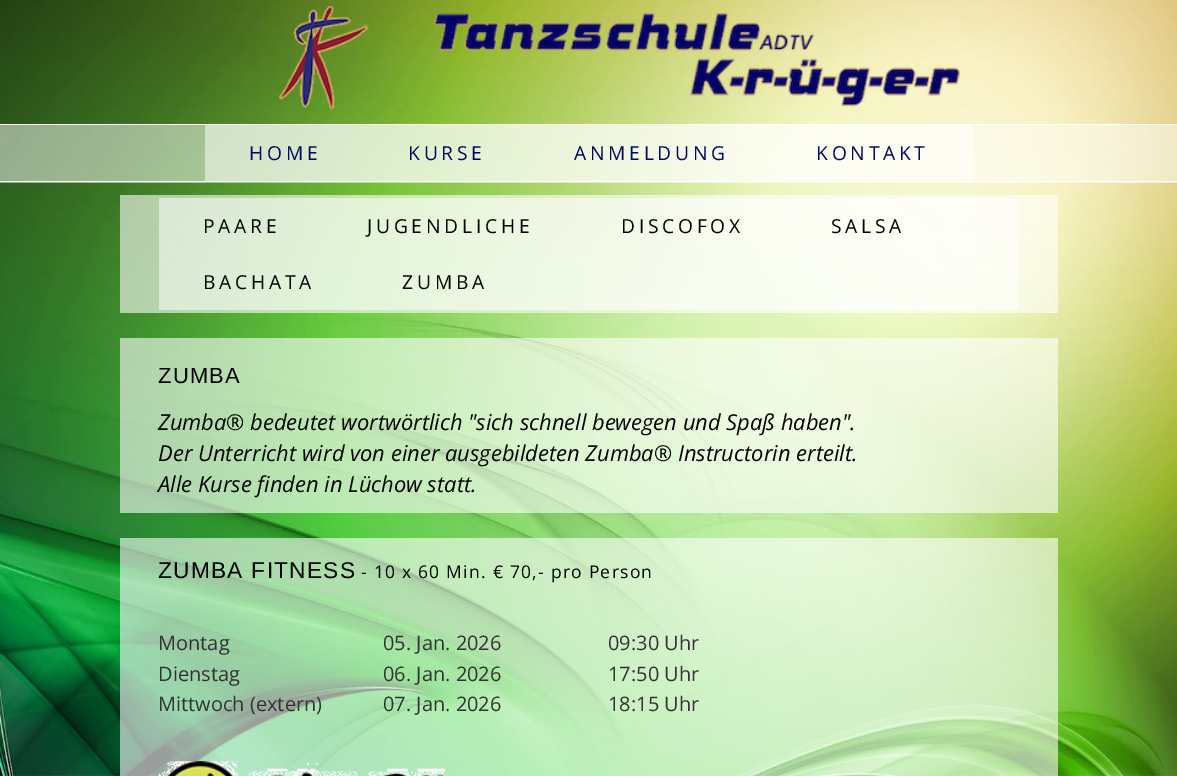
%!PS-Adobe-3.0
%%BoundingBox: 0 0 1177 776
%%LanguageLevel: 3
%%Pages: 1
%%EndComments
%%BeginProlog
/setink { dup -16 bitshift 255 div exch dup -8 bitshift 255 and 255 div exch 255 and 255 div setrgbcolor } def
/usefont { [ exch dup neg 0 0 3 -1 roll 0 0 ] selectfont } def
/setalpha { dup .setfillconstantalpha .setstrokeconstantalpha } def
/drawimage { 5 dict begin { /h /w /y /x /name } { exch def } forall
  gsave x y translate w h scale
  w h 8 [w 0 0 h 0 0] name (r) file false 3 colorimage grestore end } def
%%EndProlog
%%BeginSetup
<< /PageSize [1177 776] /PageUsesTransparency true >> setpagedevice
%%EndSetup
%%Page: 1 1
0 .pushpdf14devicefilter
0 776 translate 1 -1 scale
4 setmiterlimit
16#FFFFFF setink
0 0 1177 776 rectfill
(img1.raw) 0 0 1177 776 drawimage
(img2.raw) 278 6 683 105 drawimage
0.5 setalpha
[
    [0 125 1177 58 16#FFFFFF]
] { aload pop setink rectfill } forall
1 setalpha
[
    [0 124 1177 1 16#FFFFFF]
    [0 181 1177 1 16#FFFFFF]
] { aload pop setink rectfill } forall
0.5 setalpha
[
    [205 125 768 56 16#FFFFFF]
] { aload pop setink rectfill } forall
/OpenSans-Regular 19.25 usefont
1 setalpha
16#010863 setink
249 160 moveto 3.75 0 (HOME) ashow
408 160 moveto 3.75 0 (KURSE) ashow
574 160 moveto 3.75 0 (ANMELDUNG) ashow
816 160 moveto 3.75 0 (KONTAKT) ashow
0.6 setalpha
16#FFFFFF setink
120 195 938 118 rectfill
0.5 setalpha
159 198 860 112 rectfill
1 setalpha
16#000000 setink
203 233 moveto 3.75 0 (PAARE) ashow
367 233 moveto 3.75 0 (JUGENDLICHE) ashow
621 233 moveto 3.75 0 (DISCOFOX) ashow
831 233 moveto 3.75 0 (SALSA) ashow
203 289 moveto 3.75 0 (BACHATA) ashow
402 289 moveto 3.75 0 (ZUMBA) ashow
0.6 setalpha
16#FFFFFF setink
120 338 938 175 rectfill
/LiberationSans-Regular 21.9 usefont
1 setalpha
16#000000 setink
158 383 moveto 1.25 0 (ZUMBA) ashow
/OpenSans-Italic 21.9 usefont
[
    [(Zumba® bedeutet wortwörtlich "sich schnell bewegen und Spaß haben".) 158 430]
    [(Der Unterricht wird von einer ausgebildeten Zumba® Instructorin erteilt.) 158 461]
    [(Alle Kurse finden in Lüchow statt.) 158 492]
] { aload pop moveto show } forall
0.6 setalpha
16#FFFFFF setink
120 538 938 238 rectfill
/LiberationSans-Regular 22.75 usefont
1 setalpha
16#000000 setink
158 578 moveto 1.25 0 (ZUMBA FITNESS) ashow
/OpenSans-Regular 17.5 usefont
361 578 moveto 1.25 0 (- 10 x 60 Min. € 70,- pro Person) ashow
/OpenSans-Regular 20 usefont
16#333333 setink
[
    [(Montag) 158 650]
    [(05. Jan. 2026) 383 650]
    [(09:30 Uhr) 608 650]
    [(Dienstag) 158 681]
    [(06. Jan. 2026) 383 681]
    [(17:50 Uhr) 608 681]
    [(Mittwoch \(extern\)) 158 711]
    [(07. Jan. 2026) 383 711]
    [(18:15 Uhr) 608 711]
] { aload pop moveto show } forall
(img3.raw) 158 761 287 15 drawimage
.poppdf14devicefilter showpage
%%EOF
